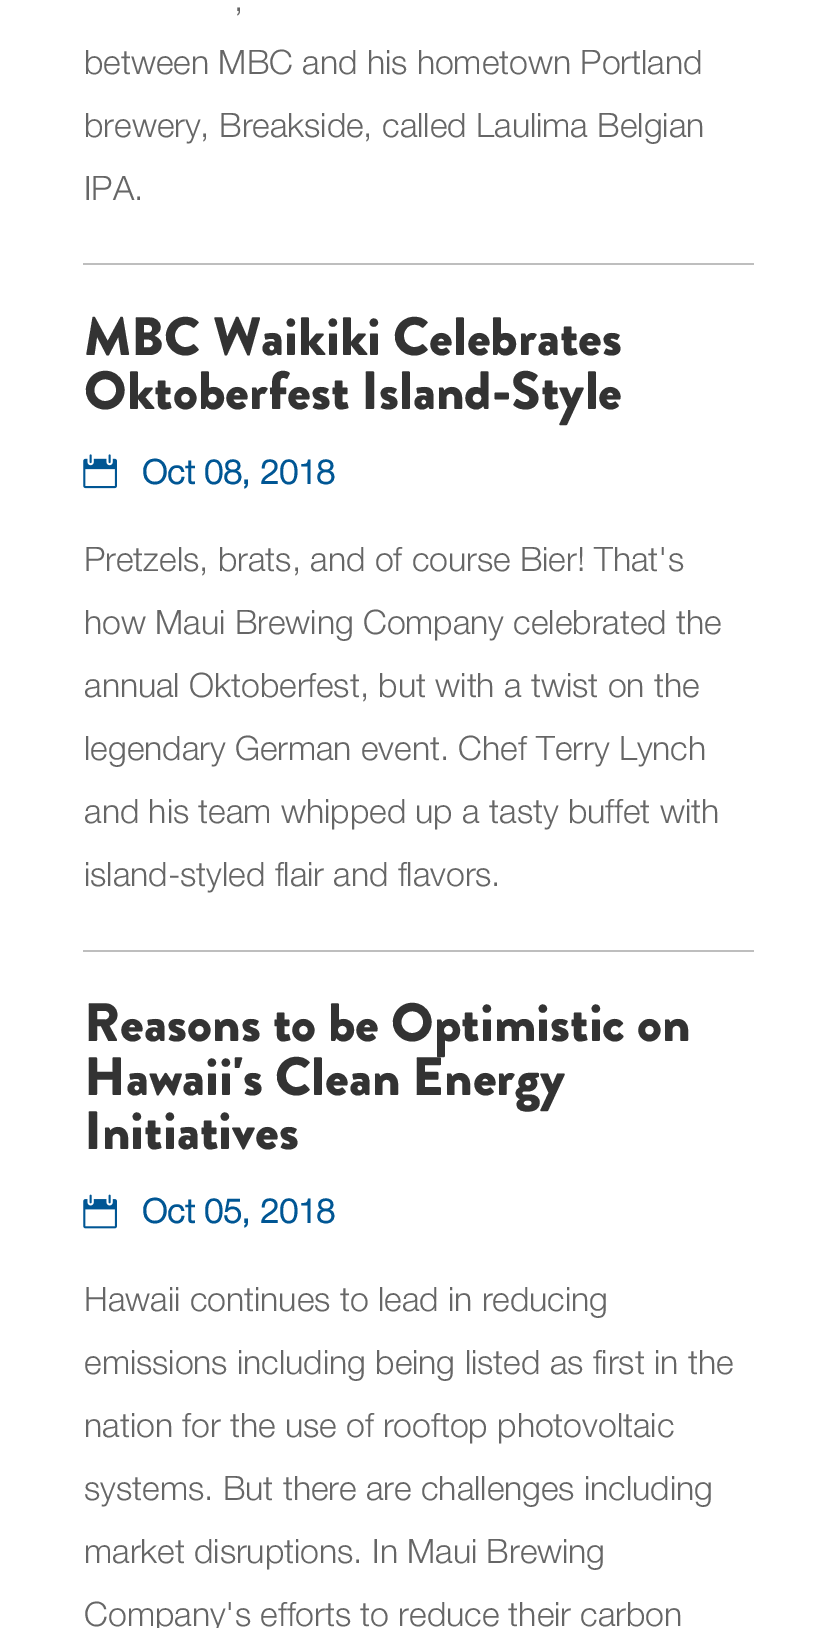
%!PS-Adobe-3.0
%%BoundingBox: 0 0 835 1628
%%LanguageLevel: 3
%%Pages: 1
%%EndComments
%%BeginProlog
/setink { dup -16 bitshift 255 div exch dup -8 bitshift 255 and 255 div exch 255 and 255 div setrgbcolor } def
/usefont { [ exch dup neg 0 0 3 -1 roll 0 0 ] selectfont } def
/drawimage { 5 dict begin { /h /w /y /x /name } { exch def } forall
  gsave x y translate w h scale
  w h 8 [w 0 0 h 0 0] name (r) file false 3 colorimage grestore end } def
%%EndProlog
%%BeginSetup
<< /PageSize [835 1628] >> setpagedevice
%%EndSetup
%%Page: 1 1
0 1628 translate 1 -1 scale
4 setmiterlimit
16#FFFFFF setink
0 0 835 1628 rectfill
/HelveticaNeue-Light 33.75 usefont
16#666666 setink
[
    [(,) 234 11]
    [(between MBC and his hometown Portland) 84 74]
    [(brewery, Breakside, called Laulima Belgian) 84 137]
    [(IPA.) 84 200]
] { aload pop moveto show } forall
16#BEBEBE setink
83 263 671 2 rectfill
/BrandonGrotesque-Black 54 usefont
16#333333 setink
84 355 moveto (MBC Waikiki Celebrates) show
84 409 moveto (Oktoberfest Island-Style) show
(img1.raw) 83 454 34 35 drawimage
/HelveticaNeue-Bold 33.75 usefont
16#005694 setink
142 484 moveto (Oct 08, 2018) show
/HelveticaNeue-Light 33.75 usefont
16#666666 setink
[
    [(Pretzels, brats, and of course Bier! That's) 84 571]
    [(how Maui Brewing Company celebrated the) 84 634]
    [(annual Oktoberfest, but with a twist on the) 84 697]
    [(legendary German event. Chef Terry Lynch) 84 760]
    [(and his team whipped up a tasty buffet with) 84 823]
    [(island-styled flair and flavors.) 84 886]
] { aload pop moveto show } forall
16#BEBEBE setink
83 950 671 2 rectfill
/BrandonGrotesque-Black 54 usefont
16#333333 setink
[
    [(Reasons to be Optimistic on) 84 1041]
    [(Hawaii's Clean Energy) 84 1095]
    [(Initiatives) 84 1149]
] { aload pop moveto show } forall
(img2.raw) 83 1194 34 35 drawimage
/HelveticaNeue-Bold 33.75 usefont
16#005694 setink
142 1223 moveto (Oct 05, 2018) show
/HelveticaNeue-Light 33.75 usefont
16#666666 setink
[
    [(Hawaii continues to lead in reducing) 84 1311]
    [(emissions including being listed as first in the) 84 1374]
    [(nation for the use of rooftop photovoltaic) 84 1437]
    [(systems. But there are challenges including) 84 1500]
    [(market disruptions. In Maui Brewing) 84 1563]
    [(Company's efforts to reduce their carbon) 84 1626]
] { aload pop moveto show } forall
showpage
%%EOF
